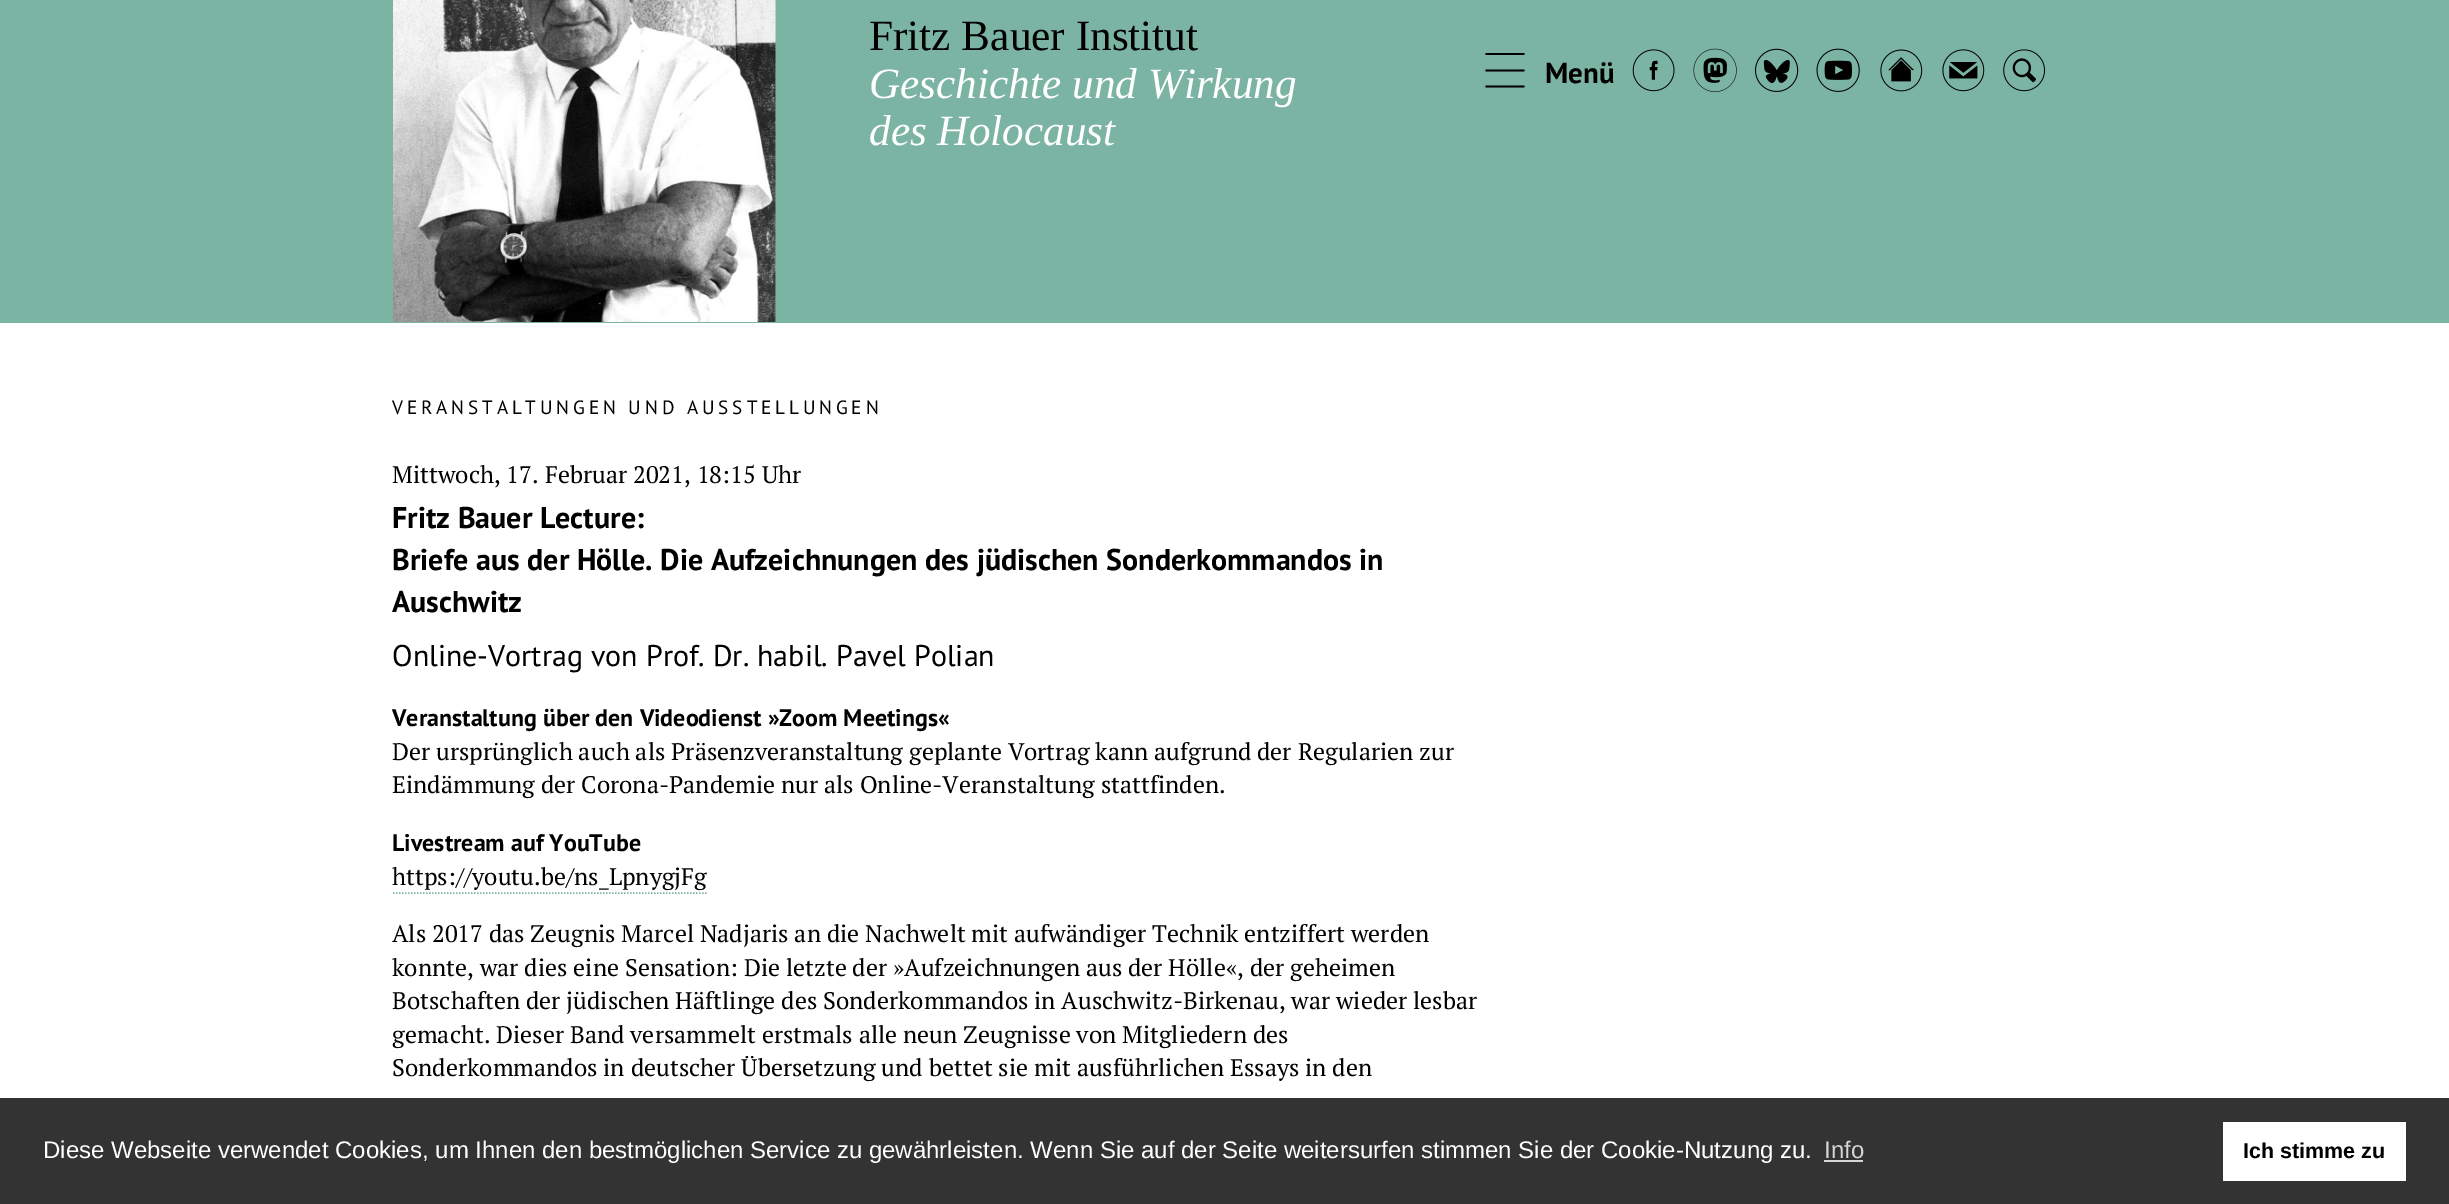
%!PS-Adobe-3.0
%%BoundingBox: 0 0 2449 1204
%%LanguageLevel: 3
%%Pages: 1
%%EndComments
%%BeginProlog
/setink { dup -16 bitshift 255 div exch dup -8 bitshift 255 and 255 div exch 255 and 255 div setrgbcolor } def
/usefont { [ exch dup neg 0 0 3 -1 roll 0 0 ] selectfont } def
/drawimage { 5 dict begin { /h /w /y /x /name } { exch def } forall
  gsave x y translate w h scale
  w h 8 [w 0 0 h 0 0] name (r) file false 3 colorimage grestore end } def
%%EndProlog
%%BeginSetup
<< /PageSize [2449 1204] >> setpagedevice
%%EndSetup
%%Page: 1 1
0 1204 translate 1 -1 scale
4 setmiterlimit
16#FFFFFF setink
0 0 2449 1204 rectfill
16#7CB4A4 setink
0 0 2449 323 rectfill
(img1.raw) 393 0 383 322 drawimage
/LiberationSerif-Regular 43.25 usefont
16#000000 setink
869 50 moveto (Fritz Bauer Institut) show
/LiberationSerif-Italic 43.25 usefont
16#FFFFFF setink
869 98 moveto (Geschichte und Wirkung) show
869 145 moveto (des Holocaust) show
/PTSans-Bold 29 usefont
16#000000 setink
1545 83 moveto (Menü) show
1485.5 53 moveto 1524.5 53 lineto 1524.5 55 lineto 1485.5 55 lineto closepath 1485.5 69.5 moveto 1524.5 69.5 lineto 1524.5 71.5 lineto 1485.5 71.5 lineto closepath 1485.5 85.5 moveto 1524.5 85.5 lineto 1524.5 87.5 lineto 1485.5 87.5 lineto closepath fill
(img2.raw) 1632 49 43 43 drawimage
(img3.raw) 1693 48 44 44 drawimage
(img4.raw) 1755 48 44 44 drawimage
(img5.raw) 1816 48 44 44 drawimage
(img6.raw) 1880 49 43 43 drawimage
(img7.raw) 1942 49 43 43 drawimage
(img8.raw) 2003 49 42 43 drawimage
/PTSans-Regular 19.2 usefont
392 414 moveto 3.85 0 (VERANSTALTUNGEN UND AUSSTELLUNGEN) ashow
/PTSerif-Regular 24 usefont
392 483 moveto (Mittwoch, 17. Februar 2021, 18:15 Uhr) show
/PTSans-Bold 30 usefont
[
    [(Fritz Bauer Lecture:) 392 528]
    [(Briefe aus der Hölle. Die Aufzeichnungen des jüdischen Sonderkommandos in) 392 570]
    [(Auschwitz) 392 612]
] { aload pop moveto show } forall
/PTSans-Regular 30 usefont
392 666 moveto (Online-Vortrag von Prof. Dr. habil. Pavel Polian) show
/PTSans-Bold 24 usefont
392 726 moveto (Veranstaltung über den Videodienst »Zoom Meetings«) show
/PTSerif-Regular 24 usefont
392 760 moveto (Der ursprünglich auch als Präsenzveranstaltung geplante Vortrag kann aufgrund der Regularien zur) show
392 793 moveto (Eindämmung der Corona-Pandemie nur als Online-Veranstaltung stattfinden.) show
/PTSans-Bold 24 usefont
392 851 moveto (Livestream auf YouTube) show
/PTSerif-Regular 24 usefont
392 885 moveto (https://youtu.be/ns_LpnygjFg) show
16#7CB4A4 setink
1.5 setlinewidth
[1.5 1.5] 0 setdash
393 893 moveto 708 893 lineto stroke
16#000000 setink
[
    [(Als 2017 das Zeugnis Marcel Nadjaris an die Nachwelt mit aufwändiger Technik entziffert werden) 392 942]
    [(konnte, war dies eine Sensation: Die letzte der »Aufzeichnungen aus der Hölle«, der geheimen) 392 976]
    [(Botschaften der jüdischen Häftlinge des Sonderkommandos in Auschwitz-Birkenau, war wieder lesbar) 392 1009]
    [(gemacht. Dieser Band versammelt erstmals alle neun Zeugnisse von Mitgliedern des) 392 1043]
    [(Sonderkommandos in deutscher Übersetzung und bettet sie mit ausführlichen Essays in den) 392 1076]
] { aload pop moveto show } forall
16#333333 setink
0 1098 2449 106 rectfill
/LiberationSans-Regular 24 usefont
16#FFFFFF setink
43 1158 moveto (Diese Webseite verwendet Cookies, um Ihnen den bestmöglichen Service zu gewährleisten. Wenn Sie auf der Seite weitersurfen stimmen Sie der Cookie-Nutzung zu.) show
16#D6D6D6 setink
1824 1158 moveto (Info) show
1824 1160 39 2 rectfill
16#FFFFFF setink
2223 1122 183 59 rectfill
/LiberationSans-Bold 21.5 usefont
16#000000 setink
2243 1158 moveto (Ich stimme zu) show
showpage
%%EOF
